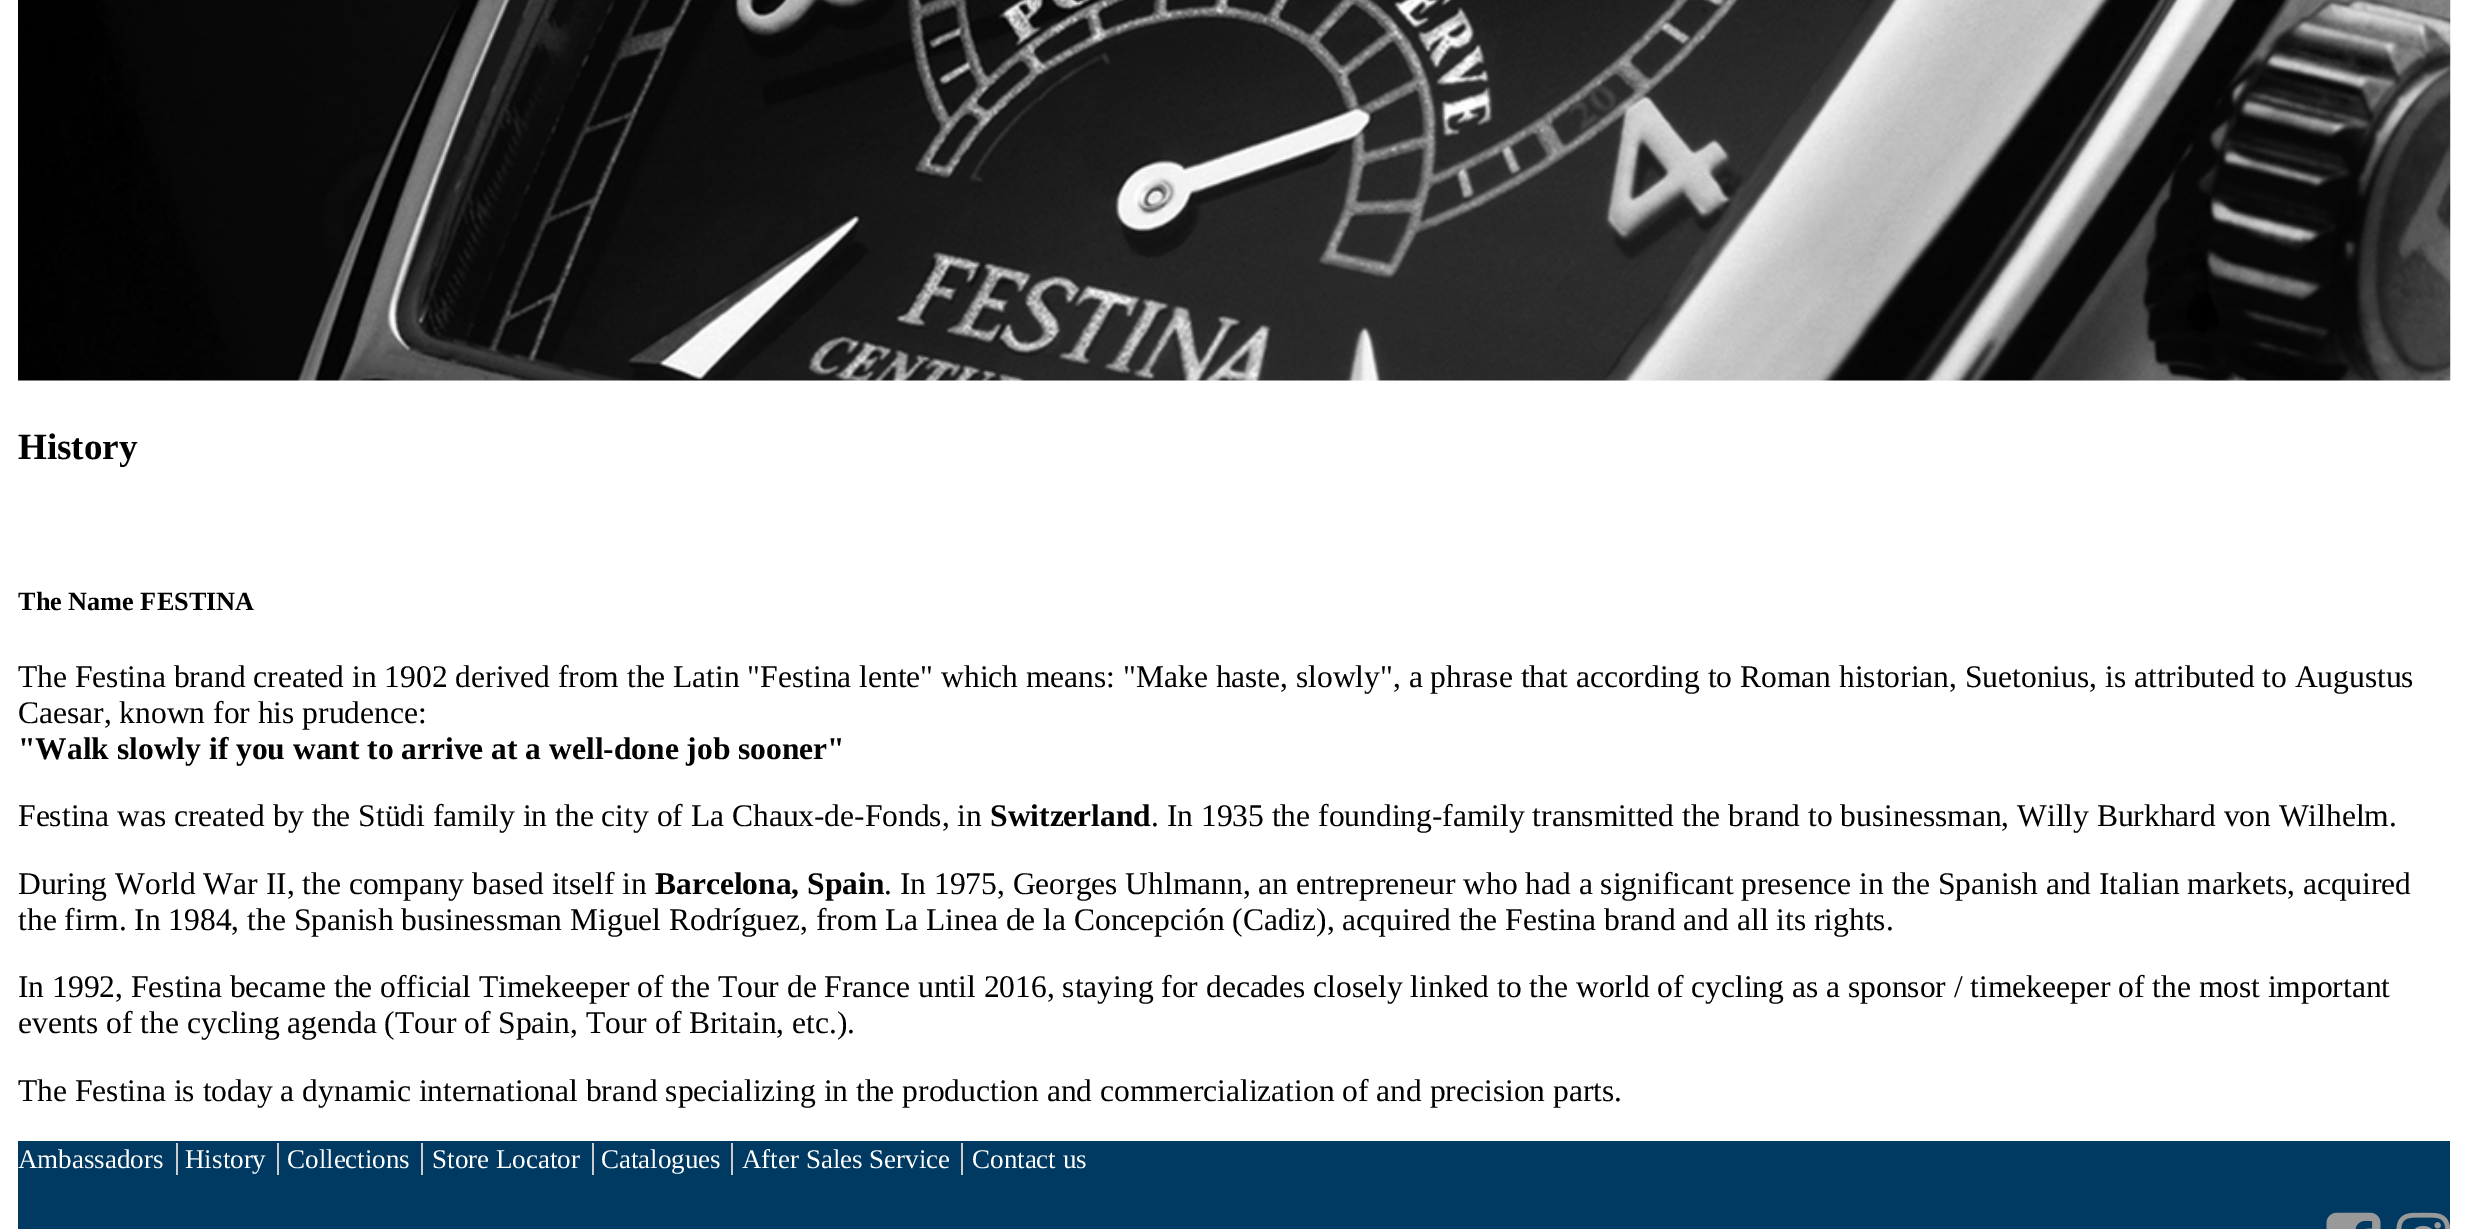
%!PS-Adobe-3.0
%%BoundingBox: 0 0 2468 1229
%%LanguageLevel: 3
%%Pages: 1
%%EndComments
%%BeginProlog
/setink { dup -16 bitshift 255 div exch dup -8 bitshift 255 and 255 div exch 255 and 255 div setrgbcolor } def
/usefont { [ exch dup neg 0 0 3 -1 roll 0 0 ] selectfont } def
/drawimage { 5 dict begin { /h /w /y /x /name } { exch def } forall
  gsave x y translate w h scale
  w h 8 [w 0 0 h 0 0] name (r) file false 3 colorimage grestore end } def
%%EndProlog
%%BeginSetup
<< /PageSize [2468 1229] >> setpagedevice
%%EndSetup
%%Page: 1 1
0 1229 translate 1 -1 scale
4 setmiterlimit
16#FFFFFF setink
0 0 2468 1229 rectfill
(img1.raw) 18 0 2433 381 drawimage
/LiberationSerif-Bold 37 usefont
16#000000 setink
18 459 moveto (History) show
/LiberationSerif-Bold 26.25 usefont
18 610 moveto (The Name FESTINA) show
/LiberationSerif-Regular 31.5 usefont
18 687 moveto (The Festina brand created in 1902 derived from the Latin "Festina lente" which means: "Make haste, slowly", a phrase that according to Roman historian, Suetonius, is attributed to Augustus) show
18 723 moveto (Caesar, known for his prudence:) show
/LiberationSerif-Bold 31.5 usefont
18 759 moveto ("Walk slowly if you want to arrive at a well-done job sooner") show
/LiberationSerif-Regular 31.5 usefont
18 826 moveto (Festina was created by the Stüdi family in the city of La Chaux-de-Fonds, in) show
/LiberationSerif-Bold 31.5 usefont
990 826 moveto (Switzerland) show
/LiberationSerif-Regular 31.5 usefont
1151 826 moveto (. In 1935 the founding-family transmitted the brand to businessman, Willy Burkhard von Wilhelm.) show
18 894 moveto (During World War II, the company based itself in) show
/LiberationSerif-Bold 31.5 usefont
655 894 moveto (Barcelona, Spain) show
/LiberationSerif-Regular 31.5 usefont
[
    [(. In 1975, Georges Uhlmann, an entrepreneur who had a significant presence in the Spanish and Italian markets, acquired) 884 894]
    [(the firm. In 1984, the Spanish businessman Miguel Rodríguez, from La Linea de la Concepción \(Cadiz\), acquired the Festina brand and all its rights.) 18 930]
    [(In 1992, Festina became the official Timekeeper of the Tour de France until 2016, staying for decades closely linked to the world of cycling as a sponsor / timekeeper of the most important) 18 997]
    [(events of the cycling agenda \(Tour of Spain, Tour of Britain, etc.\).) 18 1033]
    [(The Festina is today a dynamic international brand specializing in the production and commercialization of and precision parts.) 18 1101]
] { aload pop moveto show } forall
16#003A63 setink
18 1141 2432 88 rectfill
/LiberationSerif-Regular 27 usefont
16#FFFFFF setink
18 1168 moveto (Ambassadors) show
16#CCCCCC setink
176 1143 2 32 rectfill
16#FFFFFF setink
185 1168 moveto (History) show
16#CCCCCC setink
277 1143 2 32 rectfill
16#FFFFFF setink
287 1168 moveto (Collections) show
16#CCCCCC setink
421 1143 2 32 rectfill
16#FFFFFF setink
432 1168 moveto (Store Locator) show
16#CCCCCC setink
592 1143 2 32 rectfill
16#FFFFFF setink
601 1168 moveto (Catalogues) show
16#CCCCCC setink
731 1143 2 32 rectfill
16#FFFFFF setink
742 1168 moveto (After Sales Service) show
16#CCCCCC setink
961 1143 2 32 rectfill
16#FFFFFF setink
972 1168 moveto (Contact us) show
(img2.raw) 2326 1212 55 17 drawimage
(img3.raw) 2396 1212 55 17 drawimage
showpage
%%EOF
